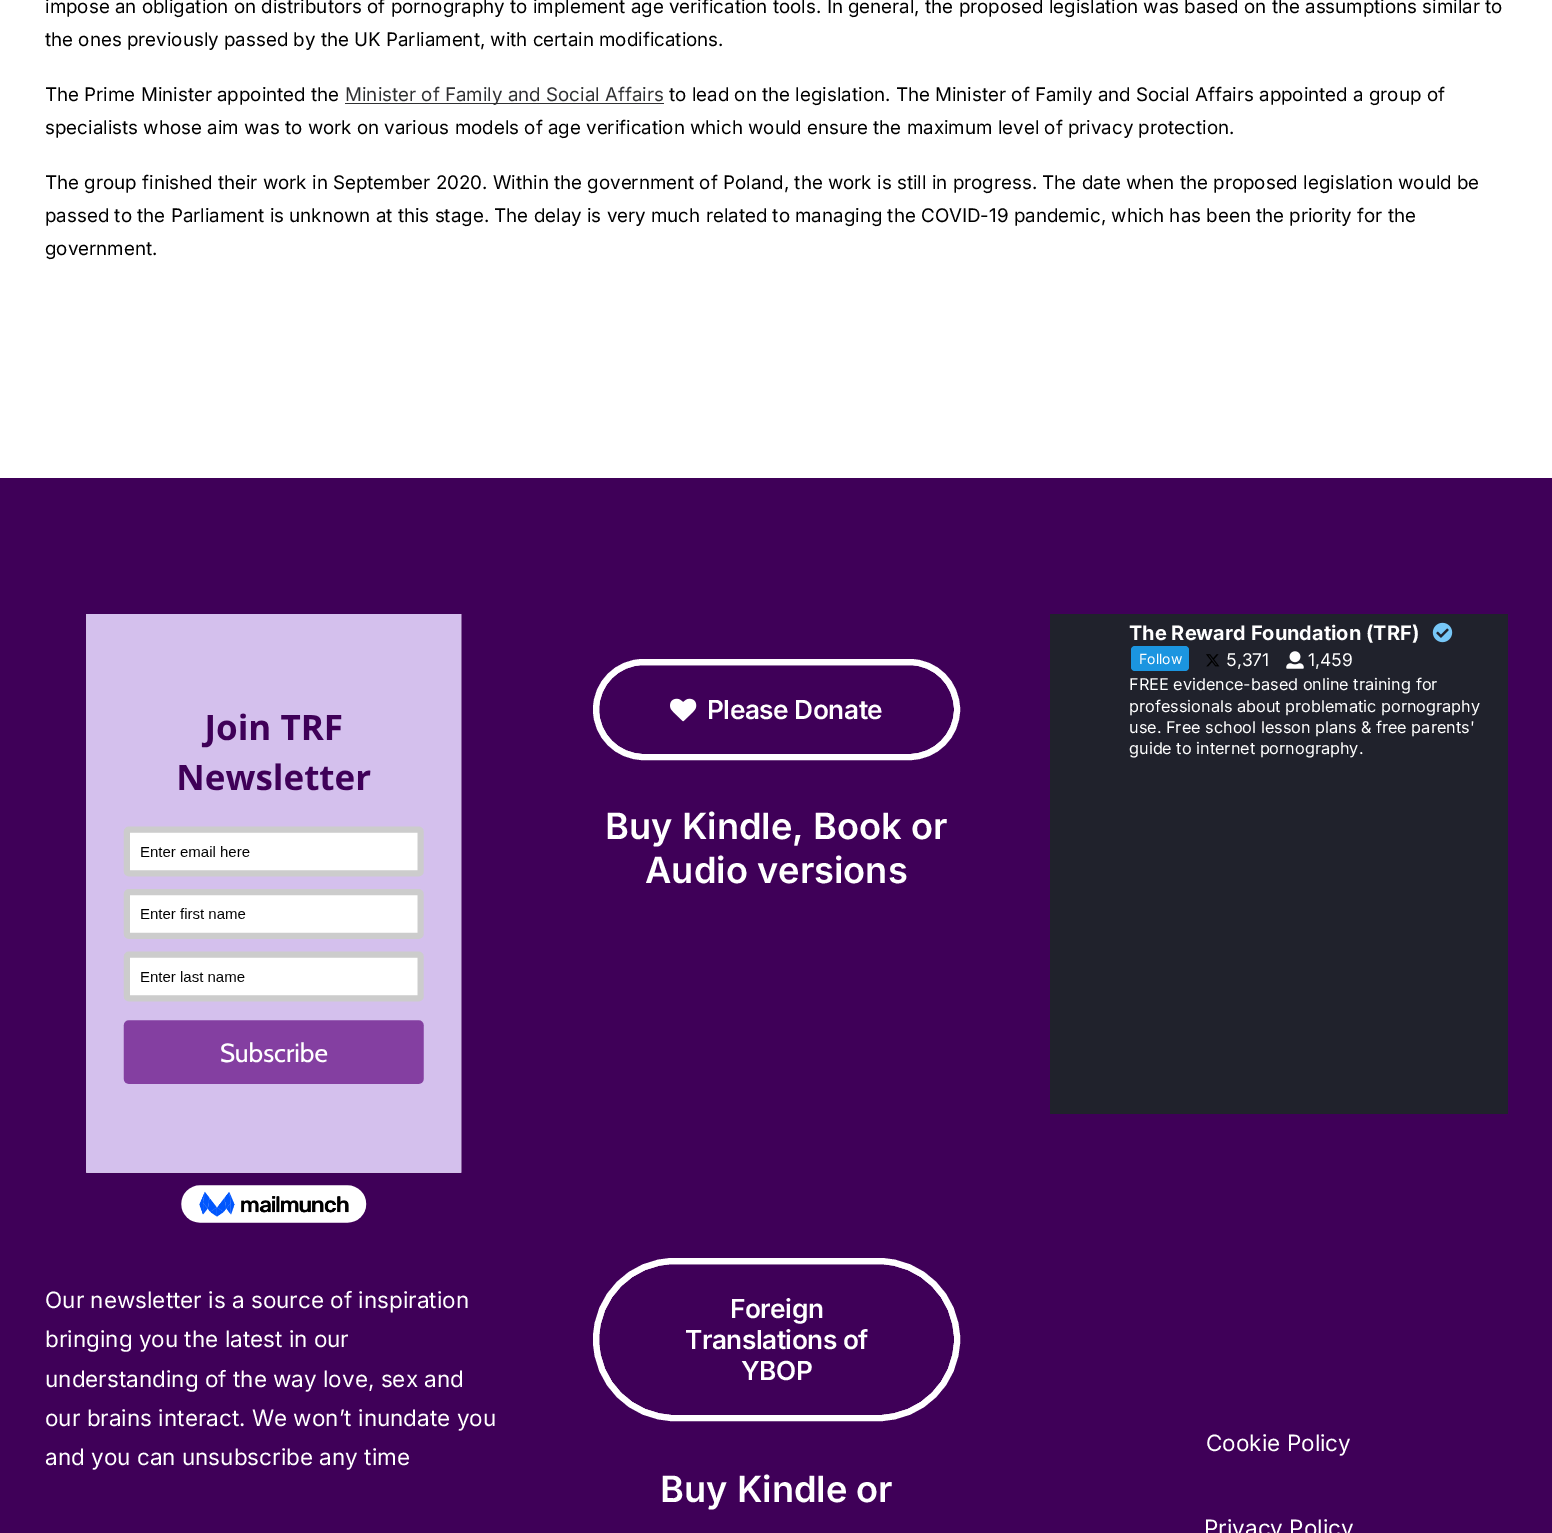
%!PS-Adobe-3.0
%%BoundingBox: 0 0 1552 1533
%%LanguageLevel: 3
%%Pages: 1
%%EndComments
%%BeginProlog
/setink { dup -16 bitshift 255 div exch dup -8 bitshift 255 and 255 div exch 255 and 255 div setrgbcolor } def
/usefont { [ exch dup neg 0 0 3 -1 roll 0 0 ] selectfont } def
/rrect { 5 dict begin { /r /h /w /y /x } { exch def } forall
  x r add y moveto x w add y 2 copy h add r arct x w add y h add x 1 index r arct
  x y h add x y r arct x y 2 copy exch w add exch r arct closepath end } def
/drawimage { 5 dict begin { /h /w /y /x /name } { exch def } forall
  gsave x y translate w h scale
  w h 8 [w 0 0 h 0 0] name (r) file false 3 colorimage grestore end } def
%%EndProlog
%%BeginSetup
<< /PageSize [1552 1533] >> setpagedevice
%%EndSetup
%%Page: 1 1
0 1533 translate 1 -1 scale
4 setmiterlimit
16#3F0058 setink
0 0 1552 1533 rectfill
16#FFFFFF setink
0 0 1552 478 rectfill
/Inter-Regular 18.75 usefont
16#000000 setink
[
    [(impose an obligation on distributors of pornography to implement age verification tools. In general, the proposed legislation was based on the assumptions similar to) 45 13]
    [(the ones previously passed by the UK Parliament, with certain modifications.) 45 46]
    [(The Prime Minister appointed the) 45 101]
] { aload pop moveto show } forall
16#303133 setink
345 103 319 1 rectfill
345 101 moveto (Minister of Family and Social Affairs) show
16#000000 setink
[
    [(to lead on the legislation. The Minister of Family and Social Affairs appointed a group of) 669 101]
    [(specialists whose aim was to work on various models of age verification which would ensure the maximum level of privacy protection.) 45 134]
    [(The group finished their work in September 2020. Within the government of Poland, the work is still in progress. The date when the proposed legislation would be) 45 189]
    [(passed to the Parliament is unknown at this stage. The delay is very much related to managing the COVID-19 pandemic, which has been the priority for the) 45 222]
    [(government.) 45 255]
] { aload pop moveto show } forall
(img1.raw) 86 614 376 609 drawimage
/Inter-Regular 22.5 usefont
16#FFFFFF setink
[
    [(Our newsletter is a source of inspiration) 45 1308]
    [(bringing you the latest in our) 45 1347]
    [(understanding of the way love, sex and) 45 1387]
    [(our brains interact. We won’t inundate you) 45 1426]
    [(and you can unsubscribe any time) 45 1465]
] { aload pop moveto show } forall
6 setlinewidth
596 662 361 95 47.5 rrect stroke
(img2.raw) 670 698 27 24 drawimage
1 setlinewidth
598.5 664.5 356 90 45 rrect stroke
/Inter-SemiBold 26.25 usefont
707 719 moveto -0.5 0 (Please Donate) ashow
/Inter-SemiBold 36.25 usefont
605 839 moveto (Buy Kindle, Book or) show
645 883 moveto (Audio versions) show
6 setlinewidth
596 1261 361 157 78.5 rrect stroke
1 setlinewidth
598.5 1263.5 356 152 76 rrect stroke
/Inter-SemiBold 26.25 usefont
730 1318 moveto -0.5 0 (Foreign) ashow
685 1349 moveto -0.5 0 (Translations of) ashow
741 1380 moveto -0.5 0 (YBOP) ashow
/Inter-SemiBold 36.25 usefont
660 1502 moveto (Buy Kindle or) show
16#20222C setink
1050 614 458 500 rectfill
/Inter-Bold 20 usefont
16#FFFFFF setink
1129 640 moveto (The Reward Foundation \(TRF\)) show
(img3.raw) 1432 622 21 21 drawimage
16#1B95E0 setink
1131 646 58 25 4 rrect fill
/Inter-Regular 14 usefont
16#FFFFFF setink
1139 664 moveto (Follow) show
(img4.raw) 1206 654 14 13 drawimage
/Inter-Regular 17.5 usefont
1226 666 moveto (5,371) show
(img5.raw) 1286 651 18 18 drawimage
1308 666 moveto (1,459) show
/Inter-Regular 16.25 usefont
[
    [(FREE evidence-based online training for) 1129 690]
    [(professionals about problematic pornography) 1129 712]
    [(use. Free school lesson plans & free parents') 1129 733]
    [(guide to internet pornography.) 1129 754]
] { aload pop moveto show } forall
/Inter-Regular 22.5 usefont
1206 1451 moveto (Cookie Policy) show
1204 1536 moveto (Privacy Policy) show
showpage
%%EOF
